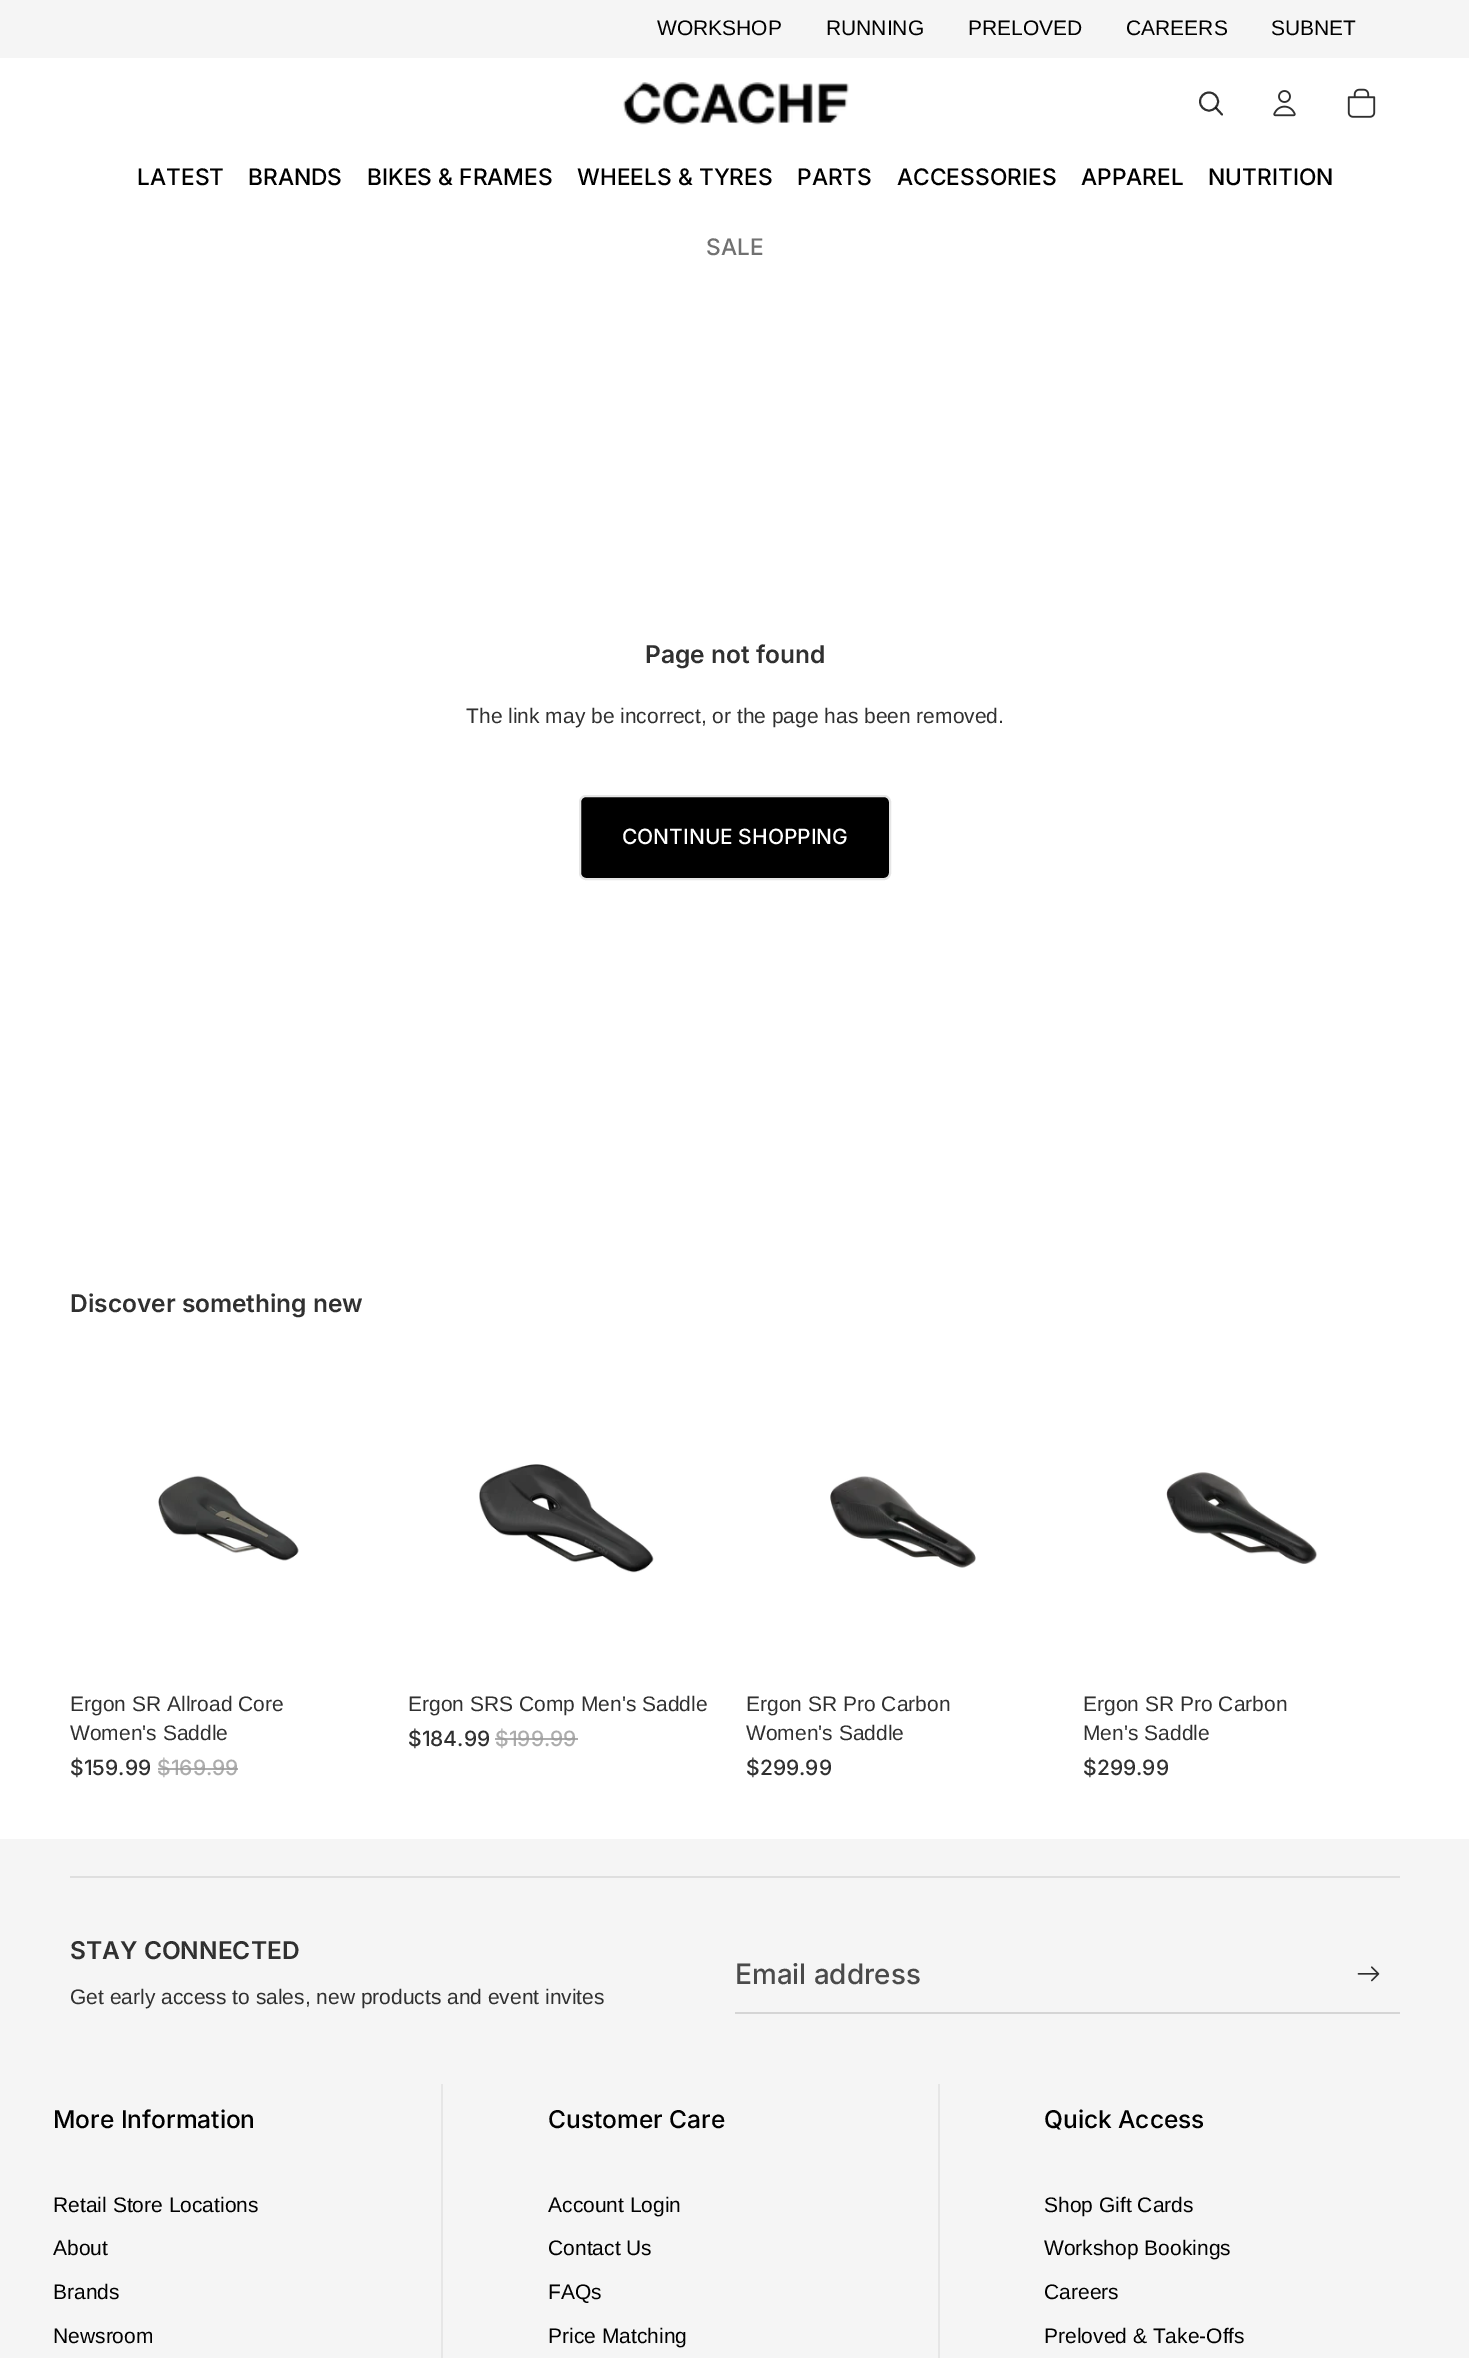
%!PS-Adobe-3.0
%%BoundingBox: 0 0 1469 2358
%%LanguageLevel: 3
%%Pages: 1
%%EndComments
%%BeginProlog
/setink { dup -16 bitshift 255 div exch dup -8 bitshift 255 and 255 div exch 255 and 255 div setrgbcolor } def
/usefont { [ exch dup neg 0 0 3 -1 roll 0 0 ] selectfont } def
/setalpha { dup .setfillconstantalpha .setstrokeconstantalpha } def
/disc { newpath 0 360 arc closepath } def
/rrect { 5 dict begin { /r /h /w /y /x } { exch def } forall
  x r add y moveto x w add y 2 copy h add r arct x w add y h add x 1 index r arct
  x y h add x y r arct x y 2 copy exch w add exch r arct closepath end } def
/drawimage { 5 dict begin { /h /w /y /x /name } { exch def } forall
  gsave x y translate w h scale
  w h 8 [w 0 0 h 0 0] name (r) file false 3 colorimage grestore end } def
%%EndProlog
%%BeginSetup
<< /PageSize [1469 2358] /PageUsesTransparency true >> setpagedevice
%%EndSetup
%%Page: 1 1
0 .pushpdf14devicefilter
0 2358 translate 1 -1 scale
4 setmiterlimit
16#FFFFFF setink
0 0 1469 2358 rectfill
16#F5F5F5 setink
0 0 1469 58 rectfill
/LiberationSans-Regular 21 usefont
16#000000 setink
[
    [(WORKSHOP) 657 35]
    [(RUNNING) 826 35]
    [(PRELOVED) 968 35]
    [(CAREERS) 1126 35]
    [(SUBNET) 1271 35]
] { aload pop moveto show } forall
(img1.raw) 623 82 226 43 drawimage
16#303030 setink
1.9 setlinewidth
1209 101.5 9 disc stroke
0.81 setalpha
16#000000 setink
1 setlinecap
1 setlinejoin
1216 108 moveto 1222 114.5 lineto stroke
1 setalpha
(img2.raw) 1273 90 23 27 drawimage
(img3.raw) 1347 88 29 30 drawimage
/inter-Medium 22.75 usefont
[
    [(LATEST) 137 185]
    [(BRANDS) 248 185]
    [(BIKES & FRAMES) 367 185]
    [(WHEELS & TYRES) 577 185]
    [(PARTS) 797 185]
    [(ACCESSORIES) 897 185]
    [(APPAREL) 1081 185]
    [(NUTRITION) 1208 185]
] { aload pop moveto show } forall
16#717171 setink
706 255 moveto (SALE) show
/Inter-SemiBold 24.5 usefont
16#303030 setink
645 663 moveto (Page not found) show
/LiberationSans-Regular 21 usefont
466 723 moveto (The link may be incorrect, or the page has been removed.) show
16#000000 setink
580 796 310 83 6 rrect gsave fill grestore
16#E6E6E6 setink
2 setlinewidth
0 setlinecap
0 setlinejoin
stroke
/inter-Medium 21 usefont
16#FFFFFF setink
622 844 moveto (CONTINUE SHOPPING) show
/Inter-SemiBold 24.5 usefont
16#303030 setink
70 1312 moveto (Discover something new) show
(img4.raw) 158 1475 141 86 drawimage
/LiberationSans-Regular 21 usefont
70 1711 moveto (Ergon SR Allroad Core) show
70 1740 moveto (Women's Saddle) show
/inter-Medium 21 usefont
70 1775 moveto ($159.99) show
16#ACACAC setink
157 1775 moveto ($169.99) show
0.81 setalpha
16#999999 setink
158 1768 80 2 rectfill
1 setalpha
(img5.raw) 479 1464 175 109 drawimage
/LiberationSans-Regular 21 usefont
16#303030 setink
408 1711 moveto (Ergon SRS Comp Men's Saddle) show
/inter-Medium 21 usefont
408 1746 moveto ($184.99) show
16#ACACAC setink
495 1746 moveto ($199.99) show
0.81 setalpha
16#999999 setink
495 1738 83 2 rectfill
1 setalpha
(img6.raw) 830 1476 146 92 drawimage
/LiberationSans-Regular 21 usefont
16#303030 setink
746 1711 moveto (Ergon SR Pro Carbon) show
746 1740 moveto (Women's Saddle) show
/inter-Medium 21 usefont
746 1775 moveto ($299.99) show
(img7.raw) 1166 1472 152 92 drawimage
/LiberationSans-Regular 21 usefont
1083 1711 moveto (Ergon SR Pro Carbon) show
1083 1740 moveto (Men's Saddle) show
/inter-Medium 21 usefont
1083 1775 moveto ($299.99) show
16#F5F5F5 setink
0 1839 1469 519 rectfill
16#DFDFDF setink
70 1876 1330 2 rectfill
/Inter-SemiBold 24.5 usefont
16#303030 setink
70 1959 moveto (STAY CONNECTED) show
/LiberationSans-Regular 21 usefont
70 2004 moveto (Get early access to sales, new products and event invites) show
16#D5D5D5 setink
735 2012 665 2 rectfill
/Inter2-Medium 28 usefont
16#4A4A4A setink
735 1984 moveto (Email address) show
(img8.raw) 1357 1966 23 16 drawimage
16#E6E6E6 setink
441 2084 2 274 rectfill
/inter-Medium 24.5 usefont
16#000000 setink
53 2128 moveto (More Information) show
/LiberationSans-Regular 21 usefont
[
    [(Retail Store Locations) 53 2212]
    [(About) 53 2255]
    [(Brands) 53 2299]
    [(Newsroom) 53 2343]
] { aload pop moveto show } forall
16#E6E6E6 setink
938 2084 2 274 rectfill
/inter-Medium 24.5 usefont
16#000000 setink
548 2128 moveto (Customer Care) show
/LiberationSans-Regular 21 usefont
[
    [(Account Login) 548 2212]
    [(Contact Us) 548 2255]
    [(FAQs) 548 2299]
    [(Price Matching) 548 2343]
] { aload pop moveto show } forall
/inter-Medium 24.5 usefont
1044 2128 moveto (Quick Access) show
/LiberationSans-Regular 21 usefont
[
    [(Shop Gift Cards) 1044 2212]
    [(Workshop Bookings) 1044 2255]
    [(Careers) 1044 2299]
    [(Preloved & Take-Offs) 1044 2343]
] { aload pop moveto show } forall
.poppdf14devicefilter showpage
%%EOF
